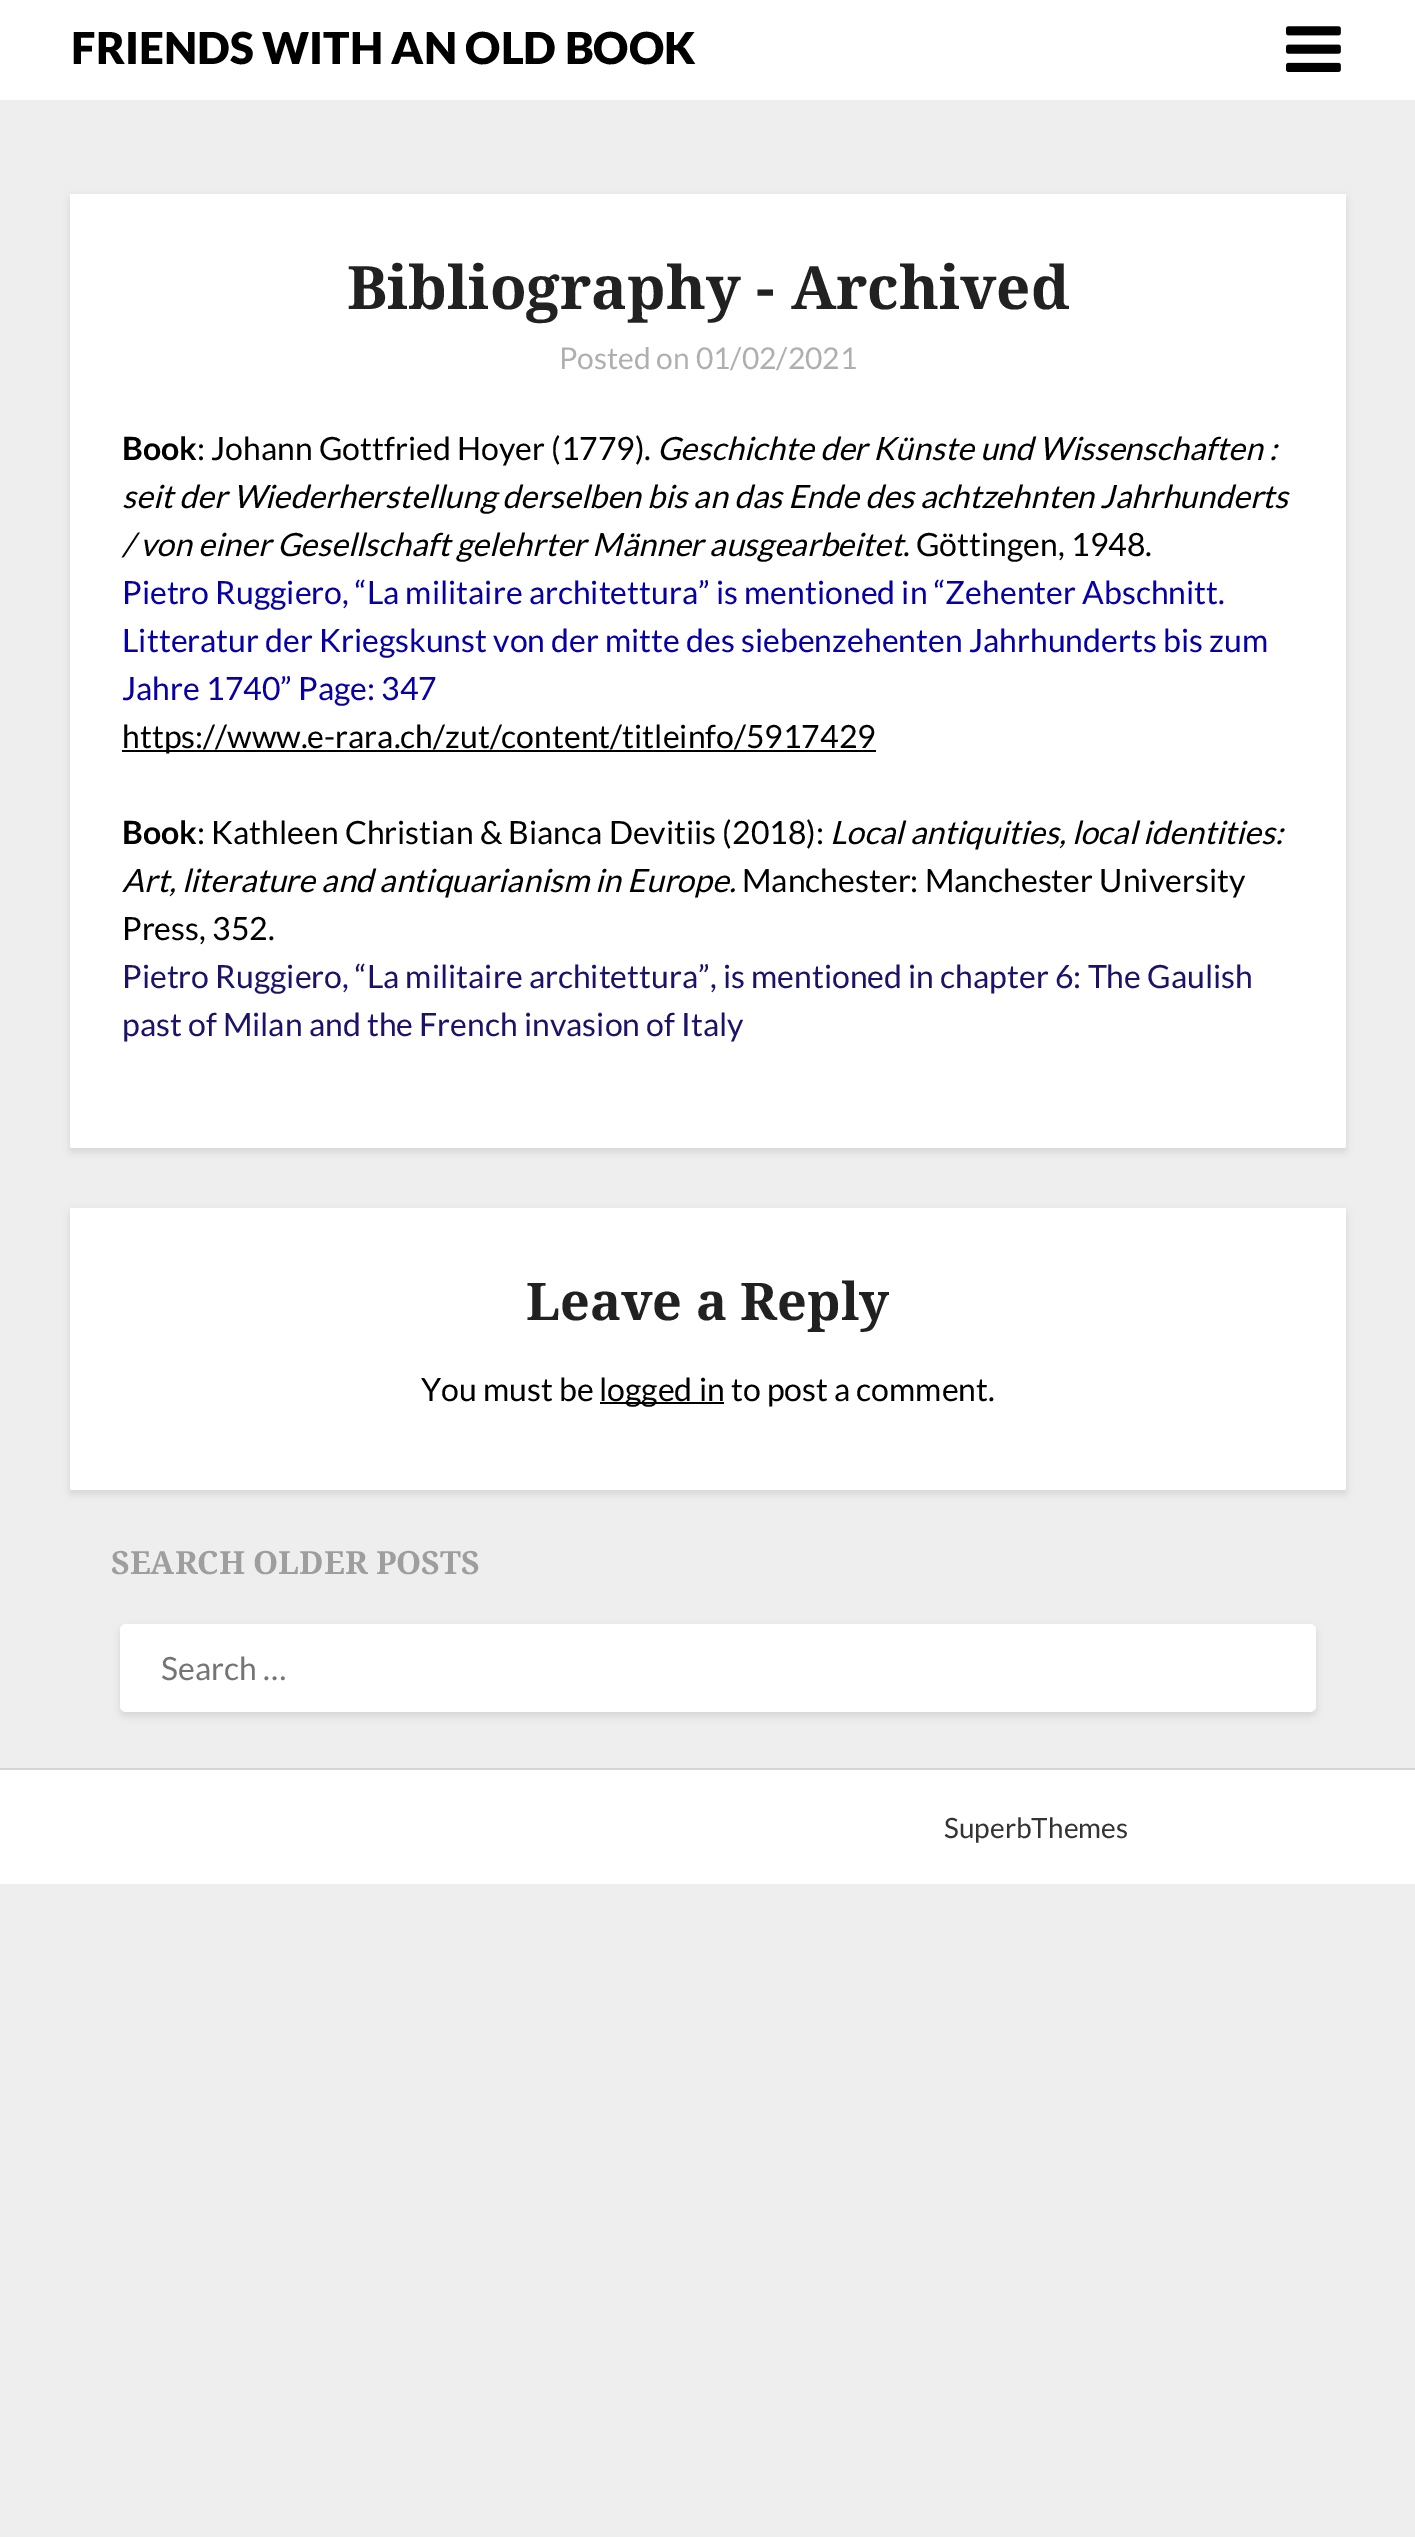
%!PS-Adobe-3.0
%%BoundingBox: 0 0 1415 2537
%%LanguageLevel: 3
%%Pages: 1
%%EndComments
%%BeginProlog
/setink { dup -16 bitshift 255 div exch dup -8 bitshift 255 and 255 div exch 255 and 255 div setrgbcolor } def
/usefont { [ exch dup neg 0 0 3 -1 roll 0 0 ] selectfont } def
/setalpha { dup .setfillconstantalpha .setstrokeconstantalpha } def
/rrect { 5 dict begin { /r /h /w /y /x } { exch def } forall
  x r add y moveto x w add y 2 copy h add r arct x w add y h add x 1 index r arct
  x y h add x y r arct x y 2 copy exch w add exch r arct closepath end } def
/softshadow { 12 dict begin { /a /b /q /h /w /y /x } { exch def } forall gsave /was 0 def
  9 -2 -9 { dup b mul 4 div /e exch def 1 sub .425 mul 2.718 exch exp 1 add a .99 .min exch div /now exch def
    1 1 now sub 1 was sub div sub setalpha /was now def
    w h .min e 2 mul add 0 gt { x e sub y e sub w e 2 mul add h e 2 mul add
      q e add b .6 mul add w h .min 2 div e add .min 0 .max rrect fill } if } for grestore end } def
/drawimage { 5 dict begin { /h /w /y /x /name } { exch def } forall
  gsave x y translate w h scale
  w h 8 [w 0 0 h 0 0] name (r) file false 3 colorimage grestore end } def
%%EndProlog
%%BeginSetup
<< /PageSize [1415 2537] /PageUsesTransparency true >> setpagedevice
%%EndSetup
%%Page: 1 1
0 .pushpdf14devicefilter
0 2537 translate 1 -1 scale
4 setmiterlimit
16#EEEEEE setink
0 0 1415 2537 rectfill
16#FFFFFF setink
0 0 1415 100 rectfill
/Lato-Black 44 usefont
16#000000 setink
71 64 moveto (FRIENDS WITH AN OLD BOOK) show
(img1.raw) 1286 26 55 46 drawimage
70 198 1276 954 2 4 0.1 softshadow
16#FFFFFF setink
70 194 1276 954 2 rrect fill
/NotoSerif-Bold 60 usefont
16#212121 setink
347 309 moveto (Bibliography - Archived) show
/Lato-Regular 30 usefont
16#AFAFAF setink
559 369 moveto (Posted on 01/02/2021) show
/Lato-Bold 32 usefont
16#000000 setink
122 460 moveto (Book) show
/Lato-Regular 32 usefont
197 460 moveto (: Johann Gottfried Hoyer \(1779\).) show
/Lato-Italic 32 usefont
[
    [(Geschichte der Künste und Wissenschaften :) 657 460]
    [(seit der Wiederherstellung derselben bis an das Ende des achtzehnten Jahrhunderts) 122 508]
    [(/ von einer Gesellschaft gelehrter Männer ausgearbeitet) 122 556]
] { aload pop moveto show } forall
/Lato-Regular 32 usefont
903 556 moveto (. Göttingen, 1948.) show
16#0700A3 setink
[
    [(Pietro Ruggiero, “La militaire architettura” is mentioned in “Zehenter Abschnitt.) 122 604]
    [(Litteratur der Kriegskunst von der mitte des siebenzehenten Jahrhunderts bis zum) 122 652]
    [(Jahre 1740” Page: 347) 122 700]
] { aload pop moveto show } forall
16#000000 setink
122 750 754 2 rectfill
122 748 moveto (https://www.e-rara.ch/zut/content/titleinfo/5917429) show
/Lato-Bold 32 usefont
122 844 moveto (Book) show
/Lato-Regular 32 usefont
197 844 moveto (: Kathleen Christian & Bianca Devitiis \(2018\):) show
/Lato-Italic 32 usefont
830 844 moveto (Local antiquities, local identities:) show
122 892 moveto (Art, literature and antiquarianism in Europe.) show
/Lato-Regular 32 usefont
742 892 moveto (Manchester: Manchester University) show
122 940 moveto (Press, 352.) show
16#1B136A setink
122 988 moveto (Pietro Ruggiero, “La militaire architettura”, is mentioned in chapter 6: The Gaulish) show
122 1036 moveto (past of Milan and the French invasion of Italy) show
16#000000 setink
70 1212 1276 282 2 4 0.1 softshadow
16#FFFFFF setink
70 1208 1276 282 2 rrect fill
/NotoSerif-Bold 52 usefont
16#212121 setink
526 1320 moveto (Leave a Reply) show
/Lato-Regular 32 usefont
16#000000 setink
421 1401 moveto (You must be) show
600 1402 124 2 rectfill
599 1401 moveto (logged in to post a comment.) show
/NotoSerif-Bold 32 usefont
16#9E9E9E setink
111 1574 moveto (SEARCH OLDER POSTS) show
16#000000 setink
120 1628 1196 88 6 4 0.1 softshadow
16#FFFFFF setink
120 1624 1196 88 6 rrect fill
/Lato-Regular 32 usefont
16#757575 setink
161 1680 moveto (Search …) show
16#FFFFFF setink
0 1770 1415 114 rectfill
16#D6D6D6 setink
0 1768 1415 2 rectfill
/Lato-Regular 28 usefont
16#333333 setink
944 1838 moveto (SuperbThemes) show
.poppdf14devicefilter showpage
%%EOF
